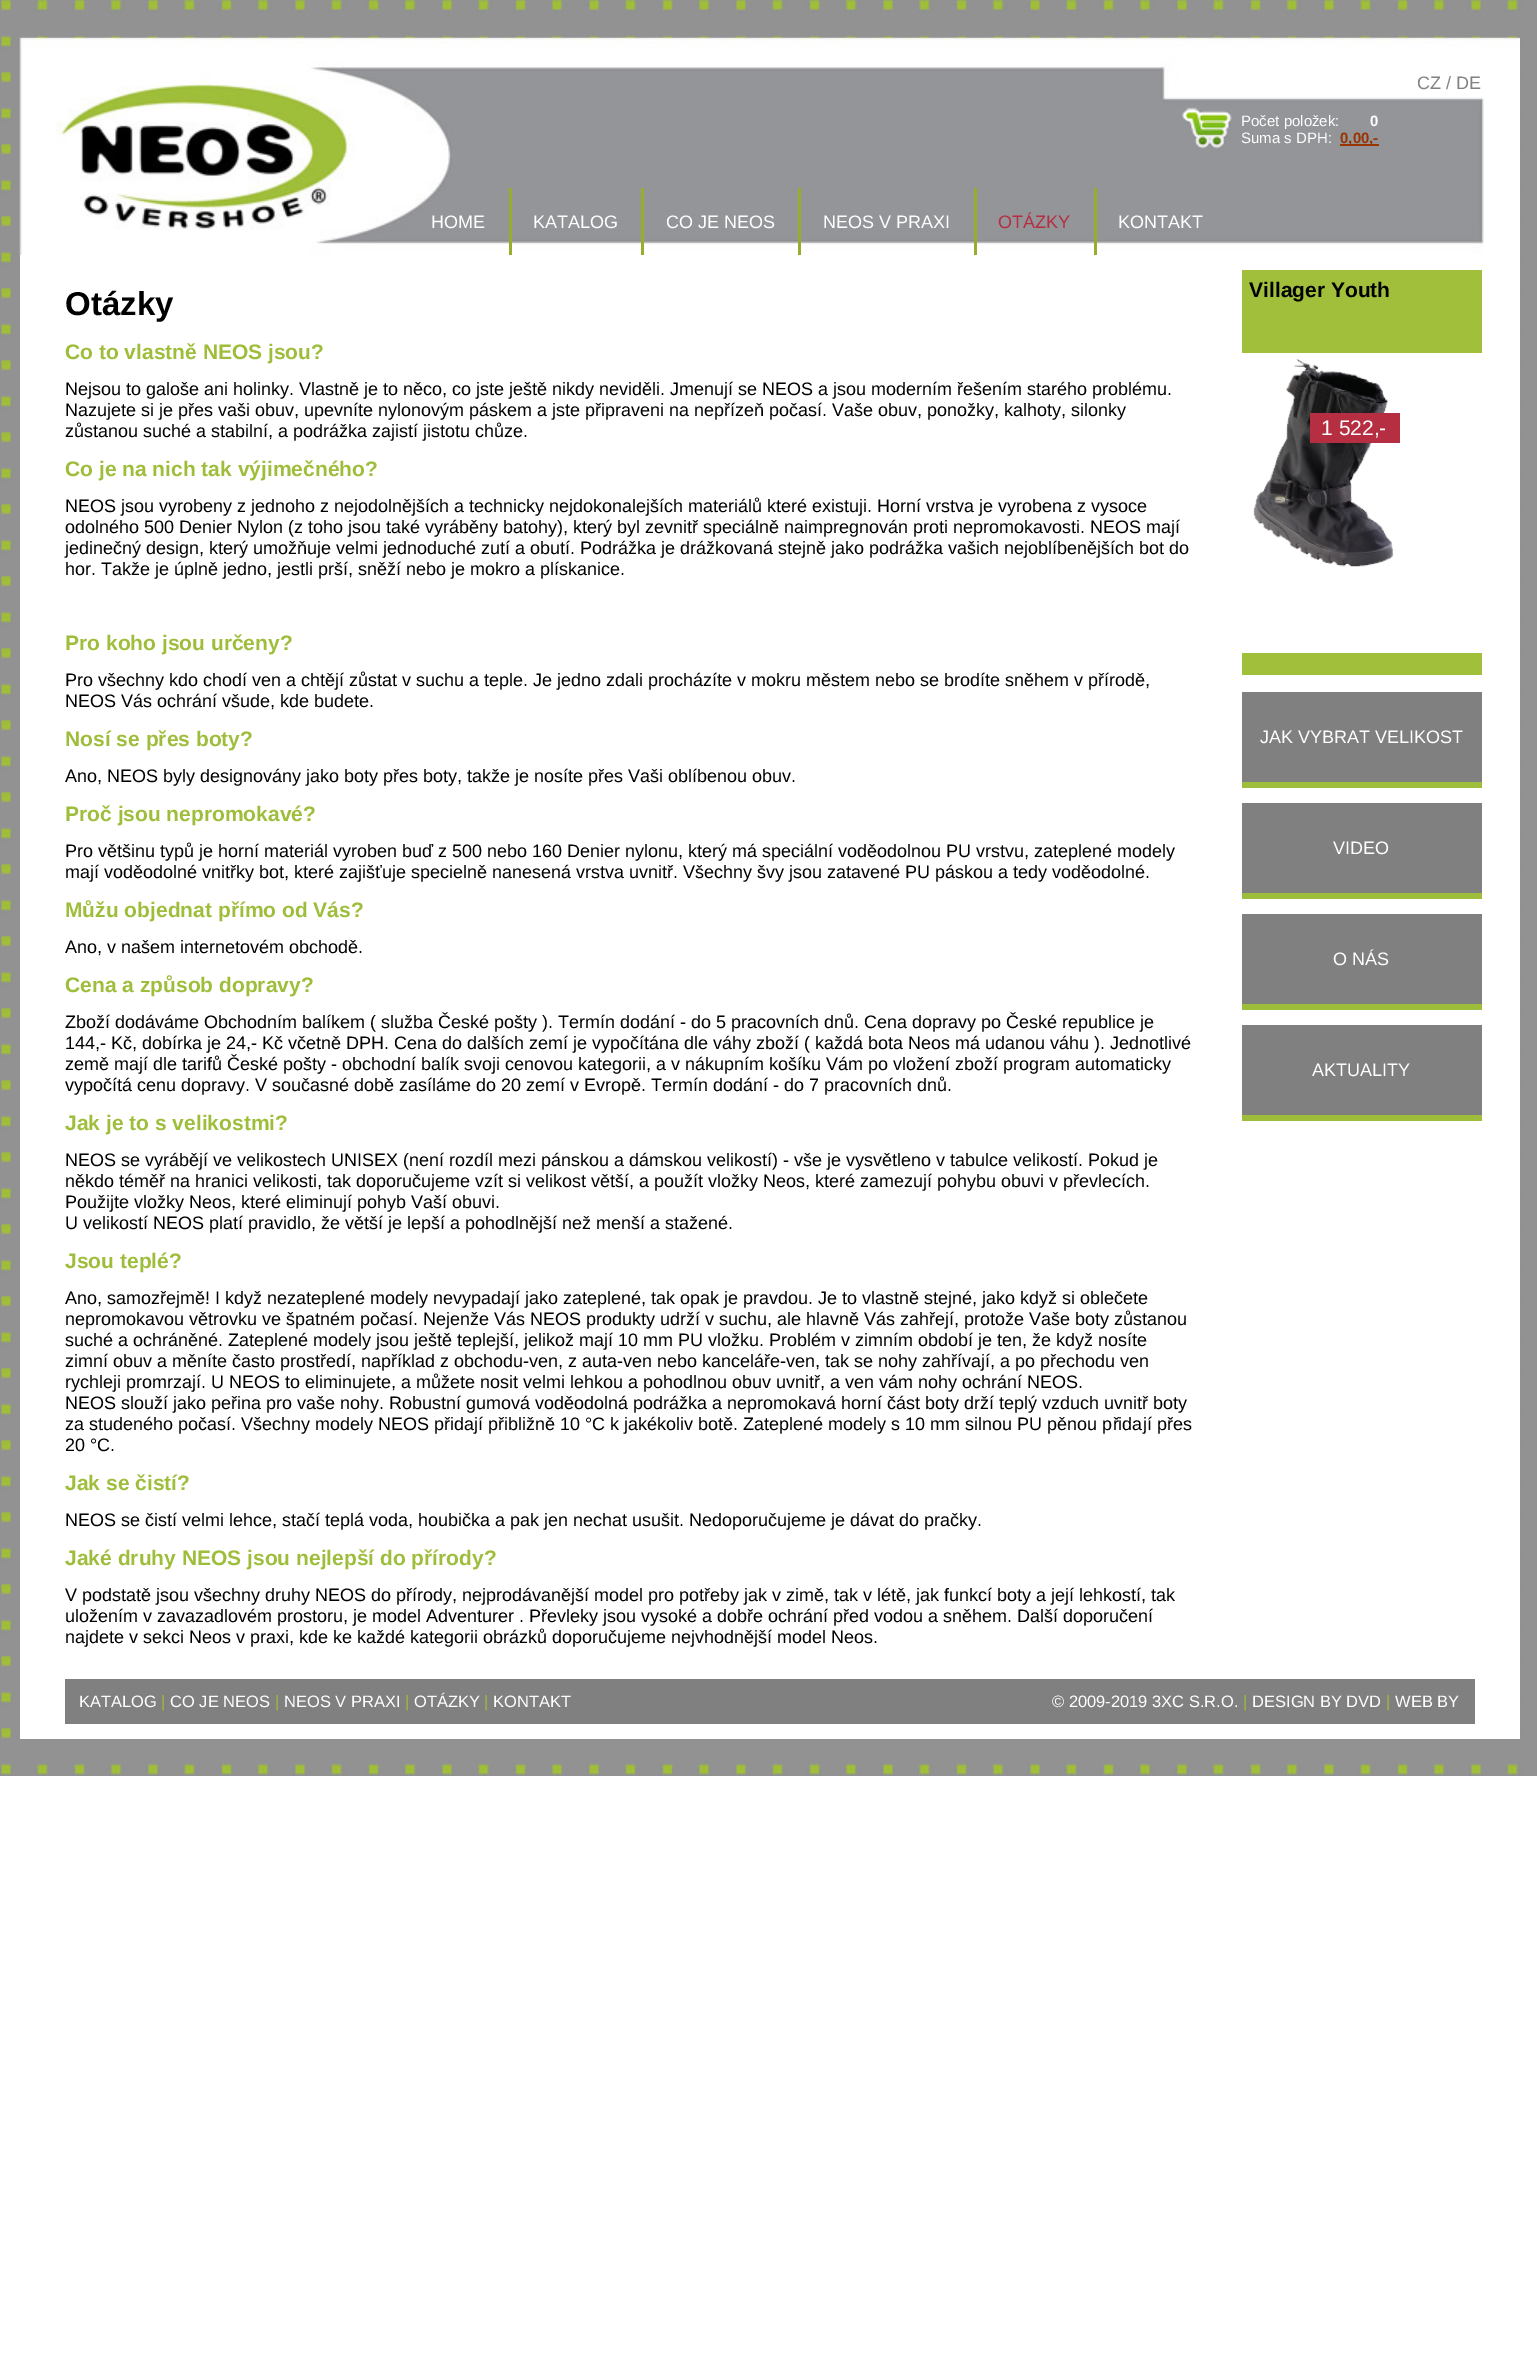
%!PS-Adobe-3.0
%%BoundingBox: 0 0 1537 2380
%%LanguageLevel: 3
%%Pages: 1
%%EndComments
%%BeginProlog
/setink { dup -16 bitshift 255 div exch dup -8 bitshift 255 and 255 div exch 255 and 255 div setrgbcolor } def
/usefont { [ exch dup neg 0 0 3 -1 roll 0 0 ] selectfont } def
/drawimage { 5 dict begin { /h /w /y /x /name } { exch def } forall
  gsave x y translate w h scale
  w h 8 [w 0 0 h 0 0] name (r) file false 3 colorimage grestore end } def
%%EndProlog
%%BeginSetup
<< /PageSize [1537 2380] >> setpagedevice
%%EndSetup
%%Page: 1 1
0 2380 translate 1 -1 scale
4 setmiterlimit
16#FFFFFF setink
0 0 1537 2380 rectfill
(img1.raw) 0 0 1537 1776 drawimage
20 38 1500 1701 rectfill
(img2.raw) 19 37 1501 218 drawimage
/LiberationSans-Regular 18 usefont
16#828282 setink
1417 89 moveto (CZ / DE) show
(img3.raw) 1182 107 50 43 drawimage
/LiberationSans-Regular 15 usefont
16#FFFFFF setink
1241 126 moveto (Počet položek:) show
/LiberationSans-Bold 15 usefont
1370 126 moveto (0) show
/LiberationSans-Regular 15 usefont
1241 143 moveto (Suma s DPH:) show
16#993300 setink
1340 144 39 2 rectfill
/LiberationSans-Bold 15 usefont
1340 143 moveto (0,00,-) show
/LiberationSans-Regular 18 usefont
16#FFFFFF setink
431 228 moveto (HOME) show
16#98AD2E setink
509 188 3 67 rectfill
16#FFFFFF setink
533 228 moveto (KATALOG) show
16#98AD2E setink
641 188 3 67 rectfill
16#FFFFFF setink
666 228 moveto (CO JE NEOS) show
16#98AD2E setink
798 188 3 67 rectfill
16#FFFFFF setink
823 228 moveto (NEOS V PRAXI) show
16#98AD2E setink
974 188 3 67 rectfill
16#B62E42 setink
998 228 moveto (OTÁZKY) show
16#98AD2E setink
1094 188 3 67 rectfill
16#FFFFFF setink
1118 228 moveto (KONTAKT) show
/LiberationSans-Bold 33 usefont
16#000000 setink
65 315 moveto (Otázky) show
/LiberationSans-Bold 21 usefont
16#9EBE3B setink
65 359 moveto (Co to vlastně NEOS jsou?) show
/LiberationSans-Regular 18 usefont
16#000000 setink
[
    [(Nejsou to galoše ani holinky. Vlastně je to něco, co jste ještě nikdy neviděli. Jmenují se NEOS a jsou moderním řešením starého problému.) 65 395]
    [(Nazujete si je přes vaši obuv, upevníte nylonovým páskem a jste připraveni na nepřízeň počasí. Vaše obuv, ponožky, kalhoty, silonky) 65 416]
    [(zůstanou suché a stabilní, a podrážka zajistí jistotu chůze.) 65 437]
] { aload pop moveto show } forall
/LiberationSans-Bold 21 usefont
16#9EBE3B setink
65 476 moveto (Co je na nich tak výjimečného?) show
/LiberationSans-Regular 18 usefont
16#000000 setink
[
    [(NEOS jsou vyrobeny z jednoho z nejodolnějších a technicky nejdokonalejších materiálů které existuji. Horní vrstva je vyrobena z vysoce) 65 512]
    [(odolného 500 Denier Nylon \(z toho jsou také vyráběny batohy\), který byl zevnitř speciálně naimpregnován proti nepromokavosti. NEOS mají) 65 533]
    [(jedinečný design, který umožňuje velmi jednoduché zutí a obutí. Podrážka je drážkovaná stejně jako podrážka vašich nejoblíbenějších bot do) 65 554]
    [(hor. Takže je úplně jedno, jestli prší, sněží nebo je mokro a plískanice.) 65 575]
] { aload pop moveto show } forall
/LiberationSans-Bold 21 usefont
16#9EBE3B setink
65 650 moveto (Pro koho jsou určeny?) show
/LiberationSans-Regular 18 usefont
16#000000 setink
65 686 moveto (Pro všechny kdo chodí ven a chtějí zůstat v suchu a teple. Je jedno zdali procházíte v mokru městem nebo se brodíte sněhem v přírodě,) show
65 707 moveto (NEOS Vás ochrání všude, kde budete.) show
/LiberationSans-Bold 21 usefont
16#9EBE3B setink
65 746 moveto (Nosí se přes boty?) show
/LiberationSans-Regular 18 usefont
16#000000 setink
65 782 moveto (Ano, NEOS byly designovány jako boty přes boty, takže je nosíte přes Vaši oblíbenou obuv.) show
/LiberationSans-Bold 21 usefont
16#9EBE3B setink
65 821 moveto (Proč jsou nepromokavé?) show
/LiberationSans-Regular 18 usefont
16#000000 setink
65 857 moveto (Pro většinu typů je horní materiál vyroben buď z 500 nebo 160 Denier nylonu, který má speciální voděodolnou PU vrstvu, zateplené modely) show
65 878 moveto (mají voděodolné vnitřky bot, které zajišťuje specielně nanesená vrstva uvnitř. Všechny švy jsou zatavené PU páskou a tedy voděodolné.) show
/LiberationSans-Bold 21 usefont
16#9EBE3B setink
65 917 moveto (Můžu objednat přímo od Vás?) show
/LiberationSans-Regular 18 usefont
16#000000 setink
65 953 moveto (Ano, v našem internetovém obchodě.) show
/LiberationSans-Bold 21 usefont
16#9EBE3B setink
65 992 moveto (Cena a způsob dopravy?) show
/LiberationSans-Regular 18 usefont
16#000000 setink
[
    [(Zboží dodáváme Obchodním balíkem \( služba České pošty \). Termín dodání - do 5 pracovních dnů. Cena dopravy po České republice je) 65 1028]
    [(144,- Kč, dobírka je 24,- Kč včetně DPH. Cena do dalších zemí je vypočítána dle váhy zboží \( každá bota Neos má udanou váhu \). Jednotlivé) 65 1049]
    [(země mají dle tarifů České pošty - obchodní balík svoji cenovou kategorii, a v nákupním košíku Vám po vložení zboží program automaticky) 65 1070]
    [(vypočítá cenu dopravy. V současné době zasíláme do 20 zemí v Evropě. Termín dodání - do 7 pracovních dnů.) 65 1091]
] { aload pop moveto show } forall
/LiberationSans-Bold 21 usefont
16#9EBE3B setink
65 1130 moveto (Jak je to s velikostmi?) show
/LiberationSans-Regular 18 usefont
16#000000 setink
[
    [(NEOS se vyrábějí ve velikostech UNISEX \(není rozdíl mezi pánskou a dámskou velikostí\) - vše je vysvětleno v tabulce velikostí. Pokud je) 65 1166]
    [(někdo téměř na hranici velikosti, tak doporučujeme vzít si velikost větší, a použít vložky Neos, které zamezují pohybu obuvi v převlecích.) 65 1187]
    [(Použijte vložky Neos, které eliminují pohyb Vaší obuvi.) 65 1208]
    [(U velikostí NEOS platí pravidlo, že větší je lepší a pohodlnější než menší a stažené.) 65 1229]
] { aload pop moveto show } forall
/LiberationSans-Bold 21 usefont
16#9EBE3B setink
65 1268 moveto (Jsou teplé?) show
/LiberationSans-Regular 18 usefont
16#000000 setink
[
    [(Ano, samozřejmě! I když nezateplené modely nevypadají jako zateplené, tak opak je pravdou. Je to vlastně stejné, jako když si oblečete) 65 1304]
    [(nepromokavou větrovku ve špatném počasí. Nejenže Vás NEOS produkty udrží v suchu, ale hlavně Vás zahřejí, protože Vaše boty zůstanou) 65 1325]
    [(suché a ochráněné. Zateplené modely jsou ještě teplejší, jelikož mají 10 mm PU vložku. Problém v zimním období je ten, že když nosíte) 65 1346]
    [(zimní obuv a měníte často prostředí, například z obchodu-ven, z auta-ven nebo kanceláře-ven, tak se nohy zahřívají, a po přechodu ven) 65 1367]
    [(rychleji promrzají. U NEOS to eliminujete, a můžete nosit velmi lehkou a pohodlnou obuv uvnitř, a ven vám nohy ochrání NEOS.) 65 1388]
    [(NEOS slouží jako peřina pro vaše nohy. Robustní gumová voděodolná podrážka a nepromokavá horní část boty drží teplý vzduch uvnitř boty) 65 1409]
    [(za studeného počasí. Všechny modely NEOS přidají přibližně 10 °C k jakékoliv botě. Zateplené modely s 10 mm silnou PU pěnou přidají přes) 65 1430]
    [(20 °C.) 65 1451]
] { aload pop moveto show } forall
/LiberationSans-Bold 21 usefont
16#9EBE3B setink
65 1490 moveto (Jak se čistí?) show
/LiberationSans-Regular 18 usefont
16#000000 setink
65 1526 moveto (NEOS se čistí velmi lehce, stačí teplá voda, houbička a pak jen nechat usušit. Nedoporučujeme je dávat do pračky.) show
/LiberationSans-Bold 21 usefont
16#9EBE3B setink
65 1565 moveto (Jaké druhy NEOS jsou nejlepší do přírody?) show
/LiberationSans-Regular 18 usefont
16#000000 setink
[
    [(V podstatě jsou všechny druhy NEOS do přírody, nejprodávanější model pro potřeby jak v zimě, tak v létě, jak funkcí boty a její lehkostí, tak) 65 1601]
    [(uložením v zavazadlovém prostoru, je model Adventurer . Převleky jsou vysoké a dobře ochrání před vodou a sněhem. Další doporučení) 65 1622]
    [(najdete v sekci Neos v praxi, kde ke každé kategorii obrázků doporučujeme nejvhodnější model Neos.) 65 1643]
] { aload pop moveto show } forall
16#A1BF3B setink
1242 270 240 83 rectfill
/LiberationSans-Bold 21 usefont
16#000000 setink
1249 297 moveto (Villager Youth) show
(img4.raw) 1253 359 141 208 drawimage
16#B62E42 setink
1310 413 90 30 rectfill
/LiberationSans-Regular 21 usefont
16#FFFFFF setink
1321 435 moveto (1 522,-) show
[
    [1242 653 240 22 16#A1BF3B]
    [1242 692 240 90 16#808080]
    [1242 782 240 6 16#9EBE3B]
] { aload pop setink rectfill } forall
/LiberationSans-Regular 18 usefont
16#FFFFFF setink
1260 743 moveto (JAK VYBRAT VELIKOST) show
16#808080 setink
1242 803 240 90 rectfill
16#9EBE3B setink
1242 893 240 6 rectfill
16#FFFFFF setink
1333 854 moveto (VIDEO) show
16#808080 setink
1242 914 240 90 rectfill
16#9EBE3B setink
1242 1004 240 6 rectfill
16#FFFFFF setink
1333 965 moveto (O NÁS) show
16#808080 setink
1242 1025 240 90 rectfill
16#9EBE3B setink
1242 1115 240 6 rectfill
16#FFFFFF setink
1312 1076 moveto (AKTUALITY) show
16#808080 setink
65 1679 1410 45 rectfill
/LiberationSans-Regular 16.5 usefont
16#FFFFFF setink
79 1707 moveto (KATALOG) show
16#9EBE3B setink
161 1707 moveto (|) show
16#FFFFFF setink
170 1707 moveto (CO JE NEOS) show
16#9EBE3B setink
275 1707 moveto (|) show
16#FFFFFF setink
284 1707 moveto (NEOS V PRAXI) show
16#9EBE3B setink
405 1707 moveto (|) show
16#FFFFFF setink
414 1707 moveto (OTÁZKY) show
16#9EBE3B setink
484 1707 moveto (|) show
16#FFFFFF setink
493 1707 moveto (KONTAKT) show
1052 1707 moveto (© 2009-2019 3XC S.R.O.) show
16#9EBE3B setink
1243 1707 moveto (|) show
16#FFFFFF setink
1252 1707 moveto (DESIGN BY DVD) show
16#9EBE3B setink
1386 1707 moveto (|) show
16#FFFFFF setink
1395 1707 moveto (WEB BY) show
showpage
%%EOF
